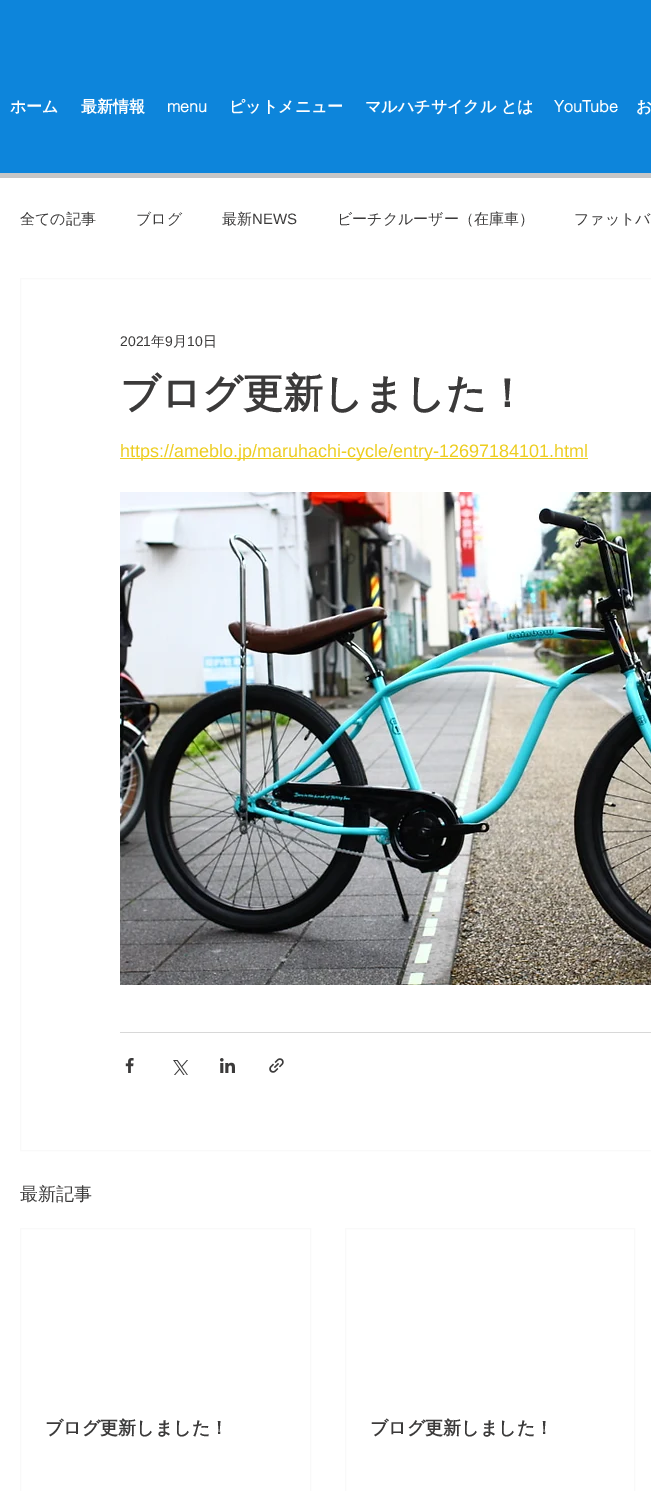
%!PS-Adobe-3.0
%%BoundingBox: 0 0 651 1491
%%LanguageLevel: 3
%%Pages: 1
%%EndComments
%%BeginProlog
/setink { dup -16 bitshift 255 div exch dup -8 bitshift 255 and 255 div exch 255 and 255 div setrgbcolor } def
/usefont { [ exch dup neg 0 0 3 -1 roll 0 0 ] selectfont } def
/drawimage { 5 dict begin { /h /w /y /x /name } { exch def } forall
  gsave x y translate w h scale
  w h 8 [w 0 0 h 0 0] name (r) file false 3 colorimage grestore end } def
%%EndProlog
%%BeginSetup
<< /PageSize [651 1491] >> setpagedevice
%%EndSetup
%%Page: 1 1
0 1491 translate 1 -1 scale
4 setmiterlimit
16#FFFFFF setink
0 0 651 1491 rectfill
16#0D85DB setink
0 0 651 173 rectfill
16#C6C6C6 setink
0 173 651 5 rectfill
/WenQuanYiZenHei-Bold 16 usefont
16#FFFFFF setink
10 112 moveto (ホーム) show
81 112 moveto (最新情報) show
/helvetica-Bold 16 usefont
167 112 moveto (menu) show
/WenQuanYiZenHei-Bold 16 usefont
229 112 moveto (ピットメニュー) show
365 112 moveto (マルハチサイクル とは) show
/helvetica-Bold 16 usefont
554 112 moveto (YouTube) show
/WenQuanYiZenHei-Bold 16 usefont
636 112 moveto (お) show
/WenQuanYiZenHei-Medium 15 usefont
16#3B3A3A setink
[
    [(全ての記事) 20 224]
    [(ブログ) 136 224]
    [(最新) 222 224]
] { aload pop moveto show } forall
/LiberationSans-Regular 15 usefont
252 224 moveto (NEWS) show
/WenQuanYiZenHei-Medium 15 usefont
337 224 moveto (ビーチクルーザー（在庫車）) show
574 224 moveto (ファットバ) show
16#F9F9F9 setink
20.5 278.5 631 872 rectstroke
/LiberationSans-Regular 14 usefont
16#3B3A3A setink
120 346 moveto (2021) show
/WenQuanYiZenHei-Medium 14 usefont
151 346 moveto (年) show
/LiberationSans-Regular 14 usefont
165 346 moveto (9) show
/WenQuanYiZenHei-Medium 14 usefont
173 346 moveto (月) show
/LiberationSans-Regular 14 usefont
187 346 moveto (10) show
/WenQuanYiZenHei-Medium 14 usefont
203 346 moveto (日) show
/WenQuanYiZenHei-Bold 40 usefont
120 407 moveto (ブログ更新しました！) show
16#EDCD1F setink
120 458 468 1 rectfill
/LiberationSans-Regular 18 usefont
120 457 moveto (https://ameblo.jp/maruhachi-cycle/entry-12697184101.html) show
(img1.raw) 120 492 531 493 drawimage
16#D8D8D8 setink
120 1032 531 1 rectfill
(img2.raw) 125 1058 9 15 drawimage
(img3.raw) 173 1060 15 15 drawimage
(img4.raw) 220 1058 15 15 drawimage
(img5.raw) 269 1058 15 15 drawimage
/WenQuanYiZenHei-Medium 18 usefont
16#3B3A3A setink
20 1200 moveto (最新記事) show
16#F9F9F9 setink
20.5 1228.5 290 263 rectstroke
/WenQuanYiZenHei-Bold 18 usefont
16#3B3A3A setink
45 1434 moveto (ブログ更新しました！) show
16#F9F9F9 setink
345.5 1228.5 289 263 rectstroke
16#3B3A3A setink
370 1434 moveto (ブログ更新しました！) show
showpage
%%EOF
